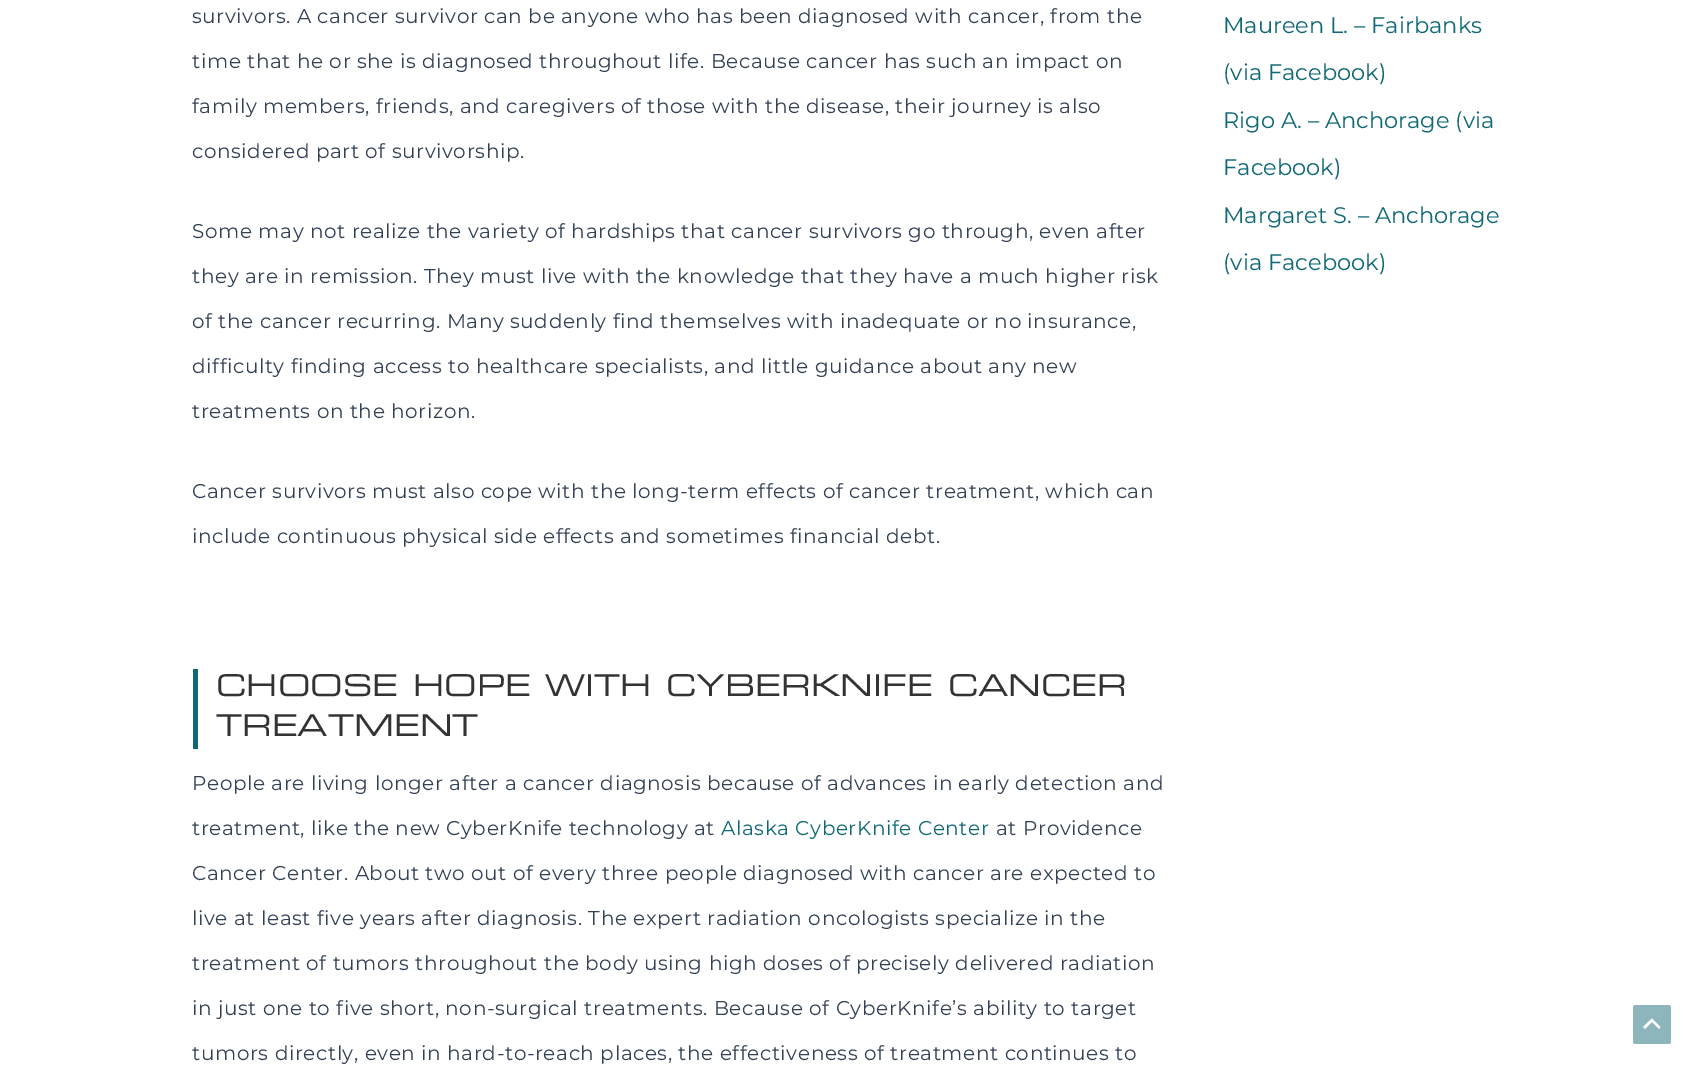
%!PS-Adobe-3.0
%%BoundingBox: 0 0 1708 1081
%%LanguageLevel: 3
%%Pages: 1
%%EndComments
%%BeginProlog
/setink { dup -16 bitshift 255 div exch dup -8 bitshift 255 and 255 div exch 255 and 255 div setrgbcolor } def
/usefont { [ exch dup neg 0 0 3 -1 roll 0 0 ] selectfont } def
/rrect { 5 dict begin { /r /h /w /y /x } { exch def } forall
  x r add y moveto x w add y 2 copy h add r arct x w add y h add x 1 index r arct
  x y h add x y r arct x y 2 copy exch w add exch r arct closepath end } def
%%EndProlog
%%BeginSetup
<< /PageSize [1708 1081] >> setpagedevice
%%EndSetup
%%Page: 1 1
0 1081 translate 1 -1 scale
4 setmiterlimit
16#FFFFFF setink
0 0 1708 1081 rectfill
/Montserrat-Thin 20 usefont
16#334155 setink
192 23 moveto 0.6 0 (survivors. A cancer survivor can be anyone who has been diagnosed with cancer, from the) ashow
192 68 moveto 0.6 0 (time that he or she is diagnosed throughout life. Because cancer has such an impact on) ashow
192 113 moveto 0.6 0 (family members, friends, and caregivers of those with the disease, their journey is also) ashow
192 158 moveto 0.6 0 (considered part of survivorship.) ashow
192 238 moveto 0.6 0 (Some may not realize the variety of hardships that cancer survivors go through, even after) ashow
192 283 moveto 0.6 0 (they are in remission. They must live with the knowledge that they have a much higher risk) ashow
192 328 moveto 0.6 0 (of the cancer recurring. Many suddenly find themselves with inadequate or no insurance,) ashow
192 373 moveto 0.6 0 (difficulty finding access to healthcare specialists, and little guidance about any new) ashow
192 418 moveto 0.6 0 (treatments on the horizon.) ashow
192 498 moveto 0.6 0 (Cancer survivors must also cope with the long-term effects of cancer treatment, which can) ashow
192 543 moveto 0.6 0 (include continuous physical side effects and sometimes financial debt.) ashow
16#0F6876 setink
193 669 5 80 rectfill
/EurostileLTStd-Regular 30 usefont
16#333333 setink
216 696 moveto (CHOOSE HOPE WITH CYBERKNIFE CANCER) show
216 736 moveto (TREATMENT) show
/Montserrat-Thin 20 usefont
16#334155 setink
192 790 moveto 0.6 0 (People are living longer after a cancer diagnosis because of advances in early detection and) ashow
192 835 moveto 0.6 0 (treatment, like the new CyberKnife technology at) ashow
16#0F6876 setink
721 835 moveto 0.6 0 (Alaska CyberKnife Center) ashow
16#334155 setink
996 835 moveto 0.6 0 (at Providence) ashow
192 880 moveto 0.6 0 (Cancer Center. About two out of every three people diagnosed with cancer are expected to) ashow
192 925 moveto 0.6 0 (live at least five years after diagnosis. The expert radiation oncologists specialize in the) ashow
192 970 moveto 0.6 0 (treatment of tumors throughout the body using high doses of precisely delivered radiation) ashow
192 1015 moveto 0.6 0 (in just one to five short, non-surgical treatments. Because of CyberKnife’s ability to target) ashow
192 1060 moveto 0.6 0 (tumors directly, even in hard-to-reach places, the effectiveness of treatment continues to) ashow
/Montserrat-Thin 22.5 usefont
16#0F6876 setink
[
    [(Maureen L. – Fairbanks) 1223 33]
    [(\(via Facebook\)) 1223 80]
    [(Rigo A. – Anchorage \(via) 1223 128]
    [(Facebook\)) 1223 175]
    [(Margaret S. – Anchorage) 1223 223]
    [(\(via Facebook\)) 1223 270]
] { aload pop moveto show } forall
16#8CB6BC setink
1633 1005 38 39 2.5 rrect fill
16#FFFFFF setink
1660.5 1027 moveto 1652 1018.5 lineto 1643 1027 lineto 1645 1029 lineto 1652 1022 lineto 1659 1029 lineto closepath fill
showpage
%%EOF
